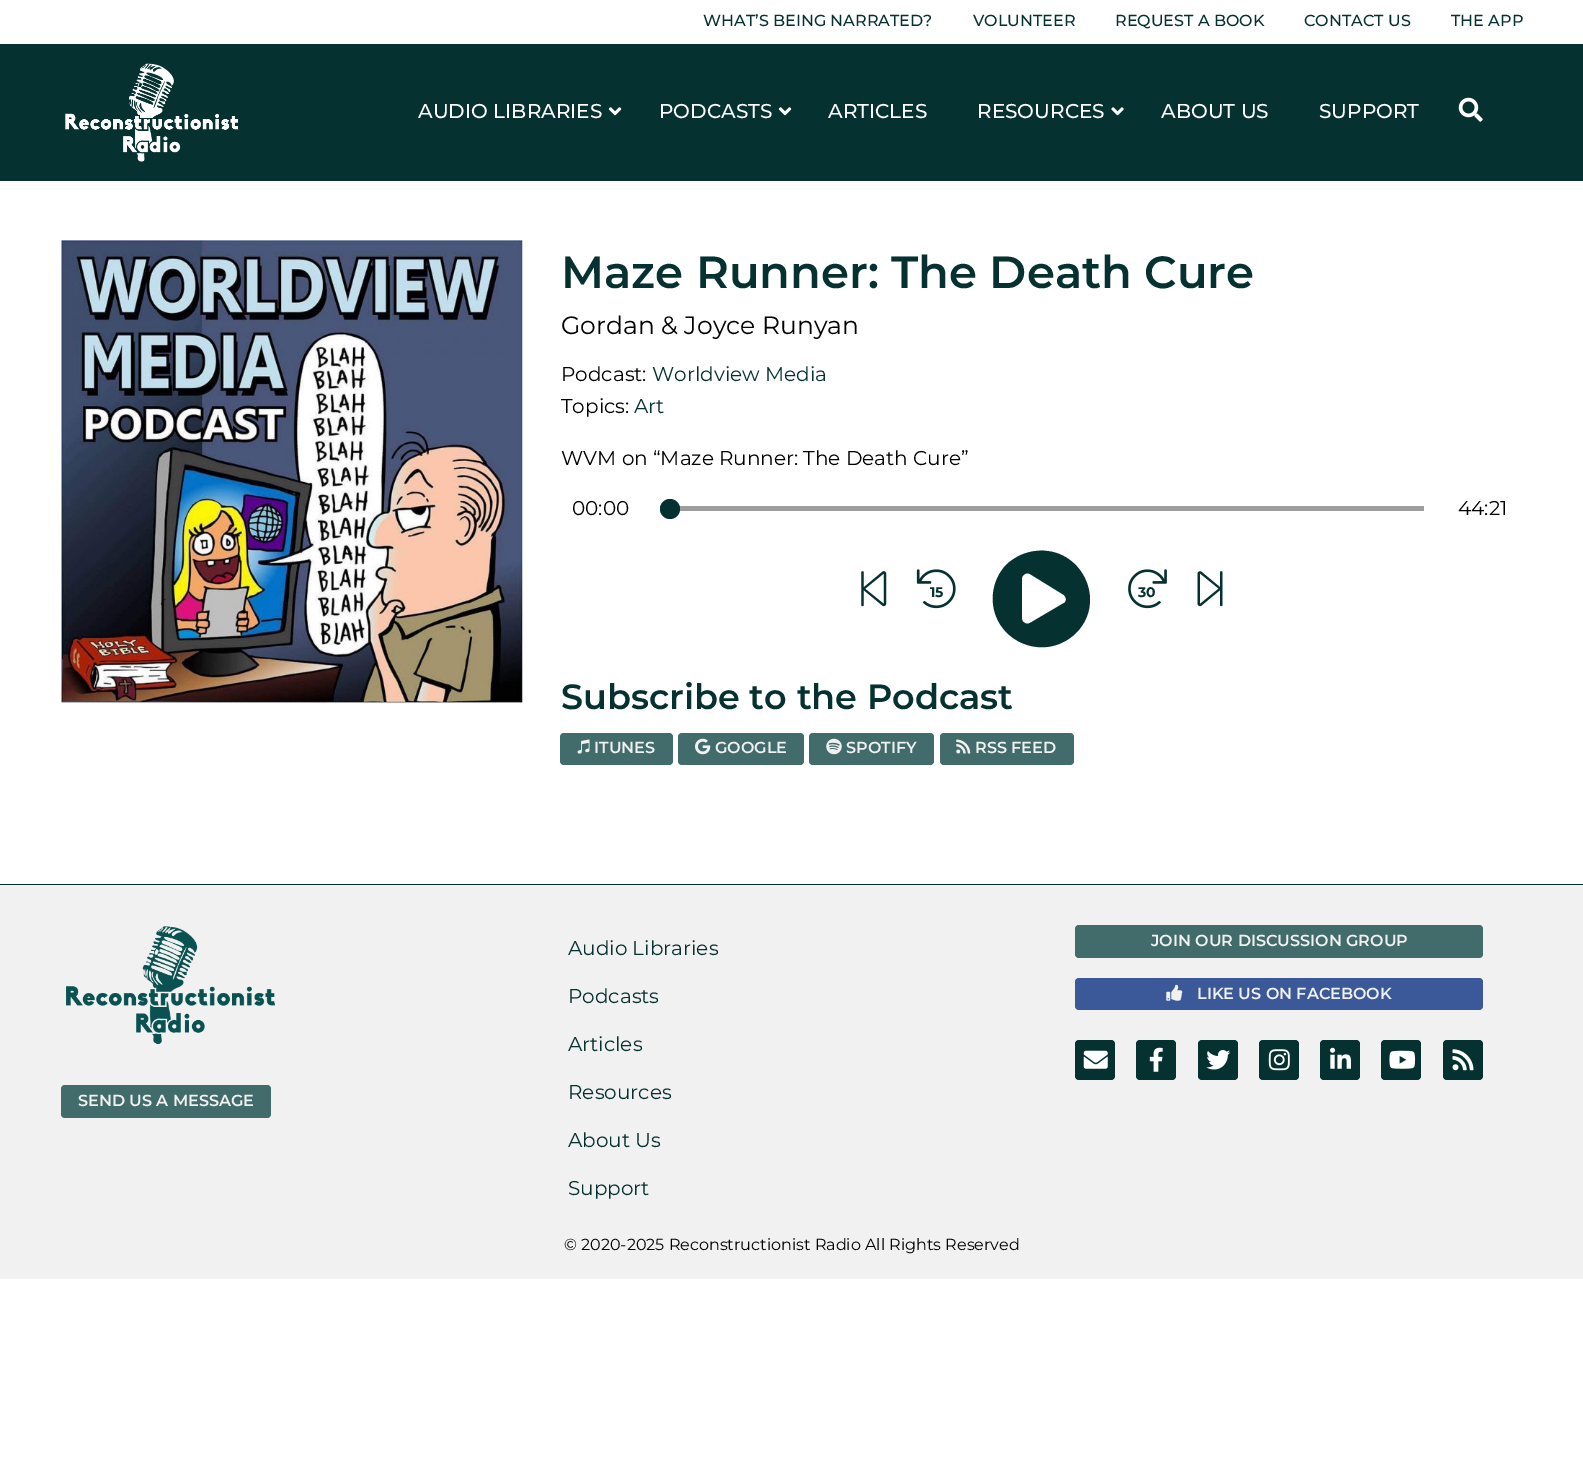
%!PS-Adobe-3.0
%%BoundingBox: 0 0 1583 1480
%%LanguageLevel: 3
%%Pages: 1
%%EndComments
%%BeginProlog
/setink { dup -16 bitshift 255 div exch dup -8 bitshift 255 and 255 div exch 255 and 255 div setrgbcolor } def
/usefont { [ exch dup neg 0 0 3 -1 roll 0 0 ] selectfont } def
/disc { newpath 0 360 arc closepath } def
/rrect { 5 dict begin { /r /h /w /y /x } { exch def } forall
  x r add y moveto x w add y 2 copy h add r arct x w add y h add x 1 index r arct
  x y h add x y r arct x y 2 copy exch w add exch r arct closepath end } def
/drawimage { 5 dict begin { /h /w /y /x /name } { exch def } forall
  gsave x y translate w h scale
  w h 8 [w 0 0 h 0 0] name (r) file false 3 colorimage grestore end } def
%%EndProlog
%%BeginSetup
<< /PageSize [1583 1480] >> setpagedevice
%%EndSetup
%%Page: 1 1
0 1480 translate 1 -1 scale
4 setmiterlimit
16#FFFFFF setink
0 0 1583 1480 rectfill
/Montserrat-Medium 16 usefont
16#063131 setink
[
    [(WHAT’S BEING NARRATED?) 703 26]
    [(VOLUNTEER) 973 26]
    [(REQUEST A BOOK) 1115 26]
    [(CONTACT US) 1304 26]
    [(THE APP) 1451 26]
] { aload pop moveto show } forall
0 44 1583 137 rectfill
(img1.raw) 65 63 174 99 drawimage
/Montserrat-Medium 20 usefont
16#FFFFFF setink
418 118 moveto (AUDIO LIBRARIES) show
(img2.raw) 608 107 14 9 drawimage
659 118 moveto (PODCASTS) show
(img2.raw) 778 107 14 9 drawimage
828 118 moveto (ARTICLES) show
977 118 moveto (RESOURCES) show
(img3.raw) 1111 107 13 9 drawimage
1161 118 moveto (ABOUT US) show
1319 118 moveto (SUPPORT) show
(img4.raw) 1458 97 25 25 drawimage
(img5.raw) 61 240 462 463 drawimage
/Montserrat-SemiBold 45 usefont
16#063131 setink
561 288 moveto (Maze Runner: The Death Cure) show
/Montserrat-Regular 25 usefont
16#000000 setink
561 334 moveto (Gordan & Joyce Runyan) show
/Montserrat-Regular 20 usefont
561 381 moveto (Podcast:) show
16#063131 setink
652 381 moveto (Worldview Media) show
16#000000 setink
561 413 moveto (Topics:) show
16#063131 setink
634 413 moveto (Art) show
16#000000 setink
561 465 moveto (WVM on “Maze Runner: The Death Cure”) show
572 515 moveto (00:00) show
16#9D9D9D setink
660 506 764 5 rectfill
16#063131 setink
670 509 10 disc fill
16#000000 setink
1458 515 moveto (44:21) show
(img6.raw) 861 571 26 36 drawimage
(img7.raw) 916 569 40 40 drawimage
/Montserrat-Bold 14 usefont
16#063131 setink
930 597 moveto (15) show
1007 564 moveto 1015 557 1025 552 1036 551 curveto 1081 546 1108 601 1076 633 curveto 1043 665 989 639 993 594 curveto 994 583 999 572 1007 564 curveto closepath 1064 603 moveto 1065 603 1066 601 1066 599 curveto 1066 598 1065 596 1064 595 curveto 1030 574 lineto 1028 573 1026 573 1025 574 curveto 1023 575 1022 577 1022 578 curveto 1022 619 lineto 1022 621 1023 622 1025 623 curveto 1026 624 1028 624 1030 623 curveto closepath fill
(img8.raw) 1128 569 39 40 drawimage
1138 597 moveto (30) show
(img9.raw) 1197 571 26 36 drawimage
/Montserrat-SemiBold 35 usefont
561 709 moveto (Subscribe to the Podcast) show
16#426B6B setink
560 733 113 32 4 rrect fill
(img10.raw) 577 739 13 15 drawimage
/Montserrat-SemiBold 16 usefont
16#F1F1F1 setink
594 753 moveto (ITUNES) show
16#426B6B setink
678 733 126 32 4 rrect fill
(img11.raw) 695 738 16 17 drawimage
16#F1F1F1 setink
715 753 moveto (GOOGLE) show
16#426B6B setink
809 733 125 32 4 rrect fill
(img12.raw) 826 738 16 17 drawimage
16#F1F1F1 setink
846 753 moveto (SPOTIFY) show
16#426B6B setink
940 733 134 32 4 rrect fill
(img13.raw) 956 739 15 15 drawimage
16#F1F1F1 setink
975 753 moveto (RSS FEED) show
0 885 1583 394 rectfill
16#063131 setink
0 884 1583 1 rectfill
(img14.raw) 66 926 209 119 drawimage
16#426B6B setink
61 1085 210 33 4 rrect fill
16#F1F1F1 setink
78 1106 moveto (SEND US A MESSAGE) show
/Montserrat-Regular 20 usefont
16#063131 setink
[
    [(Audio Libraries) 568 955]
    [(Podcasts) 568 1003]
    [(Articles) 568 1051]
    [(Resources) 568 1099]
    [(About Us) 568 1147]
    [(Support) 568 1195]
] { aload pop moveto show } forall
16#426B6B setink
1075 925 408 33 4 rrect fill
/Montserrat-SemiBold 16 usefont
16#F1F1F1 setink
1151 946 moveto (JOIN OUR DISCUSSION GROUP) show
16#3B5998 setink
1075 978 408 32 4 rrect fill
(img15.raw) 1166 984 17 17 drawimage
16#F1F1F1 setink
1197 999 moveto (LIKE US ON FACEBOOK) show
16#063131 setink
1075 1040 40 40 4 rrect fill
(img16.raw) 1083 1050 25 19 drawimage
1136 1040 40 40 4 rrect fill
(img17.raw) 1149 1047 14 25 drawimage
1198 1040 40 40 4 rrect fill
(img18.raw) 1206 1050 25 20 drawimage
1259 1040 40 40 4 rrect fill
(img19.raw) 1268 1049 22 22 drawimage
1320 1040 40 40 4 rrect fill
(img20.raw) 1330 1047 21 22 drawimage
1381 1040 40 40 4 rrect fill
(img21.raw) 1389 1050 27 19 drawimage
1443 1040 40 40 4 rrect fill
(img22.raw) 1452 1049 22 22 drawimage
/Montserrat-Regular 16 usefont
16#000000 setink
564 1250 moveto (© 2020-2025 Reconstructionist Radio All Rights Reserved) show
showpage
%%EOF
